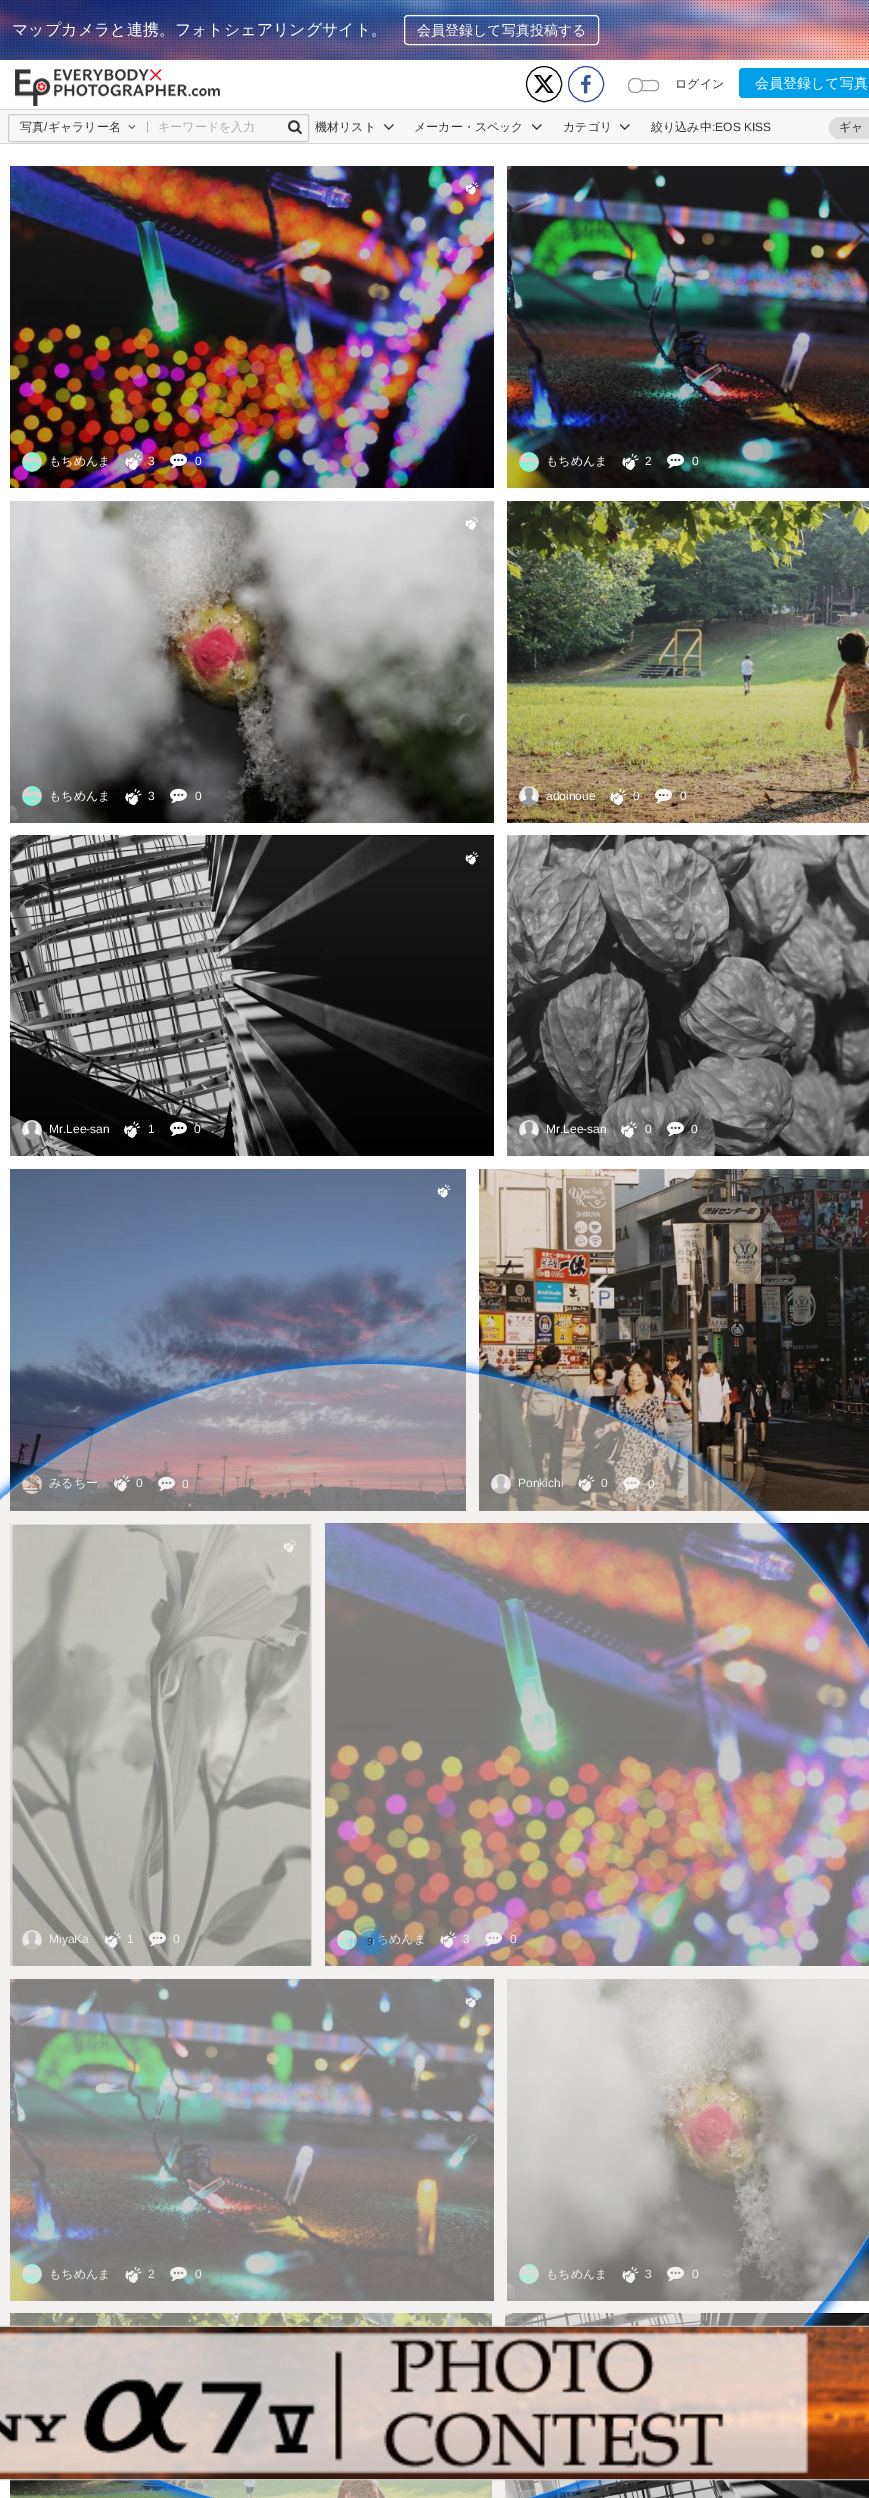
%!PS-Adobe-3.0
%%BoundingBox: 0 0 869 2498
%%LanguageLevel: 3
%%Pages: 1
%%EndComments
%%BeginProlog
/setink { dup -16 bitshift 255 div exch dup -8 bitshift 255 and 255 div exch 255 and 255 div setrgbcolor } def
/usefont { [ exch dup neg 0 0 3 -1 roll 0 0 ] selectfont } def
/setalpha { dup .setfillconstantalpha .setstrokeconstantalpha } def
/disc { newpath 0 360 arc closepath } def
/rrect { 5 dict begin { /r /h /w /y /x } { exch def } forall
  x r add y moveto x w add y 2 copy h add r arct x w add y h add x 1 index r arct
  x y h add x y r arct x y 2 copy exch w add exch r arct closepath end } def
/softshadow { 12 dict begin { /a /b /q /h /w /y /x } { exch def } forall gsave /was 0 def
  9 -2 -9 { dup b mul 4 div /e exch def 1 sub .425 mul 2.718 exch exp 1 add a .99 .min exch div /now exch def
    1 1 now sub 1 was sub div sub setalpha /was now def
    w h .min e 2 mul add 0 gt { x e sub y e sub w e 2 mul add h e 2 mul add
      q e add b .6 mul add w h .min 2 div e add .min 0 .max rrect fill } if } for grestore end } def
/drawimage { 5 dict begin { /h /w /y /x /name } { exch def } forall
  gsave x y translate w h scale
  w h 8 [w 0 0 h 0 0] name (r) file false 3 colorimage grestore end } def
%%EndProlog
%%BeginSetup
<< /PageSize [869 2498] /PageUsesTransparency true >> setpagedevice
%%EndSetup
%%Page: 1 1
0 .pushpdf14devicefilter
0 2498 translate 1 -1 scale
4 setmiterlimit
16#FFFFFF setink
0 0 869 2498 rectfill
(img1.raw) 0 0 869 60 drawimage
/WenQuanYiZenHei-Medium 16 usefont
12 35 moveto (マップカメラと連携。フォトシェアリングサイト。) show
404.5 15.5 194 29 3.5 rrect stroke
/WenQuanYiZenHei-Medium 14 usefont
417 35 moveto (会員登録して写真投稿する) show
16#D6D6D6 setink
0 109 869 1 rectfill
(img2.raw) 15 69 205 37 drawimage
16#000000 setink
544 84 17.5 disc stroke
(img3.raw) 534 74 20 20 drawimage
16#3347A0 setink
586 84 17.5 disc stroke
(img4.raw) 581 74 10 20 drawimage
16#999999 setink
655 90.5 moveto 644.5 90.5 lineto 642.5 90.5 639.5 91 637.5 90 curveto 634 89 634.5 80.5 639 80.5 curveto 649.5 80.5 lineto 655.5 80.5 658.5 79.5 658.5 86 curveto 658.5 88 657.5 90.5 655 90.5 curveto closepath stroke
16#FFFFFF setink
637 93 moveto 635 93 633.5 93 631.5 92.5 curveto 626 90 626.5 78.5 634 78 curveto 635.5 78 637.5 78 639.5 78.5 curveto 645.5 81 644.5 93 637 93 curveto closepath fill
16#999999 setink
637 92.5 moveto 635.5 92.5 633.5 92.5 632 92 curveto 626.5 90 627 79 634 78.5 curveto 635.5 78.5 637.5 78.5 639 79 curveto 644.5 81 643.5 92.5 637 92.5 curveto closepath stroke
/WenQuanYiZenHei-Medium 12 usefont
16#333333 setink
675 88 moveto (ログイン) show
16#00A0E9 setink
739 68 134 30 4 rrect fill
/WenQuanYiZenHei-Medium 14 usefont
16#FFFFFF setink
755 88 moveto (会員登録して写真) show
16#F7F7F7 setink
0 110 869 33 rectfill
16#D5D5D5 setink
0 143 869 1 rectfill
16#CCCCCC setink
8.5 114.5 300 27 1.5 rrect stroke
/WenQuanYiZenHei-Medium 12 usefont
16#333333 setink
20 131 moveto (写真 ギャラリー名) show
/LiberationSans-Regular 12 usefont
44 131 moveto (/) show
(img5.raw) 128 125 8 4 drawimage
16#AEAEAE setink
147 121 1 12 rectfill
/WenQuanYiZenHei-Medium 12 usefont
158 131 moveto (キーワードを入力) show
(img6.raw) 288 120 14 15 drawimage
16#333333 setink
315 131 moveto (機材リスト) show
(img7.raw) 383 124 11 6 drawimage
414 131 moveto (メーカー・スペック) show
(img7.raw) 531 124 11 6 drawimage
563 131 moveto (カテゴリ) show
(img7.raw) 619 124 11 6 drawimage
651 131 moveto (絞り込み中) show
/LiberationSans-Regular 12 usefont
712 131 moveto (:EOS KISS) show
16#DDDDDD setink
829 117 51 22 11 rrect fill
/WenQuanYiZenHei-Medium 12 usefont
16#333333 setink
839 131 moveto (ギャ) show
(img8.raw) 10 166 484 322 drawimage
(img9.raw) 465 181 14 14 drawimage
(img10.raw) 22 452 20 20 drawimage
16#FFFFFF setink
49 465 moveto (もちめんま) show
(img11.raw) 125 453 17 17 drawimage
/LiberationSans-Regular 12 usefont
148 465 moveto (3) show
(img12.raw) 170 453 17 16 drawimage
195 465 moveto (0) show
(img13.raw) 507 166 362 322 drawimage
(img14.raw) 519 452 20 20 drawimage
/WenQuanYiZenHei-Medium 12 usefont
546 465 moveto (もちめんま) show
(img15.raw) 622 453 17 17 drawimage
/LiberationSans-Regular 12 usefont
645 465 moveto (2) show
(img16.raw) 667 453 17 16 drawimage
692 465 moveto (0) show
(img17.raw) 10 501 484 322 drawimage
(img18.raw) 465 516 14 14 drawimage
(img19.raw) 22 786 20 20 drawimage
/WenQuanYiZenHei-Medium 12 usefont
49 800 moveto (もちめんま) show
(img20.raw) 125 788 17 18 drawimage
/LiberationSans-Regular 12 usefont
148 800 moveto (3) show
(img21.raw) 170 788 17 16 drawimage
195 800 moveto (0) show
(img22.raw) 507 501 362 322 drawimage
(img23.raw) 519 786 20 20 drawimage
546 800 moveto (adoinoue) show
(img24.raw) 610 788 17 18 drawimage
633 800 moveto (0) show
(img25.raw) 655 788 17 16 drawimage
680 800 moveto (0) show
(img26.raw) 10 835 484 321 drawimage
(img27.raw) 465 851 14 14 drawimage
(img28.raw) 22 1120 20 20 drawimage
49 1133 moveto (Mr.Lee-san) show
(img29.raw) 124 1121 17 17 drawimage
148 1133 moveto (1) show
(img30.raw) 170 1121 17 16 drawimage
194 1133 moveto (0) show
(img31.raw) 507 835 362 321 drawimage
(img32.raw) 519 1120 20 20 drawimage
546 1133 moveto (Mr.Lee-san) show
(img33.raw) 621 1121 17 17 drawimage
645 1133 moveto (0) show
(img34.raw) 667 1121 17 16 drawimage
691 1133 moveto (0) show
(img35.raw) 10 1169 456 342 drawimage
(img36.raw) 437 1184 14 14 drawimage
(img37.raw) 22 1474 20 20 drawimage
/WenQuanYiZenHei-Medium 12 usefont
49 1487 moveto (みるちー) show
(img38.raw) 114 1474 16 18 drawimage
/LiberationSans-Regular 12 usefont
136 1487 moveto (0) show
(img39.raw) 158 1476 17 16 drawimage
182 1488 moveto (0) show
(img40.raw) 479 1169 390 342 drawimage
(img41.raw) 491 1474 20 20 drawimage
518 1487 moveto (Ponkichi) show
(img42.raw) 578 1474 17 18 drawimage
601 1487 moveto (0) show
(img43.raw) 623 1476 17 16 drawimage
648 1488 moveto (0) show
(img44.raw) 10 1523 302 443 drawimage
(img45.raw) 283 1539 14 14 drawimage
(img46.raw) 22 1930 20 20 drawimage
49 1943 moveto (MiyaKa) show
(img47.raw) 104 1931 17 17 drawimage
127 1943 moveto (1) show
(img48.raw) 149 1931 17 16 drawimage
173 1943 moveto (0) show
(img49.raw) 325 1523 544 443 drawimage
(img50.raw) 337 1930 20 20 drawimage
/WenQuanYiZenHei-Medium 12 usefont
389 1943 moveto (めんま) show
(img51.raw) 440 1931 17 17 drawimage
/LiberationSans-Regular 12 usefont
463 1943 moveto (3) show
(img52.raw) 485 1931 17 16 drawimage
510 1943 moveto (0) show
(img53.raw) 10 1979 484 322 drawimage
(img54.raw) 465 1994 14 14 drawimage
(img55.raw) 22 2264 20 20 drawimage
/WenQuanYiZenHei-Medium 12 usefont
49 2278 moveto (もちめんま) show
(img56.raw) 125 2266 17 18 drawimage
/LiberationSans-Regular 12 usefont
148 2278 moveto (2) show
(img57.raw) 170 2266 17 16 drawimage
195 2278 moveto (0) show
(img58.raw) 507 1979 362 322 drawimage
(img59.raw) 519 2264 20 20 drawimage
/WenQuanYiZenHei-Medium 12 usefont
546 2278 moveto (もちめんま) show
(img60.raw) 622 2266 17 18 drawimage
/LiberationSans-Regular 12 usefont
645 2278 moveto (3) show
(img61.raw) 667 2266 17 16 drawimage
692 2278 moveto (0) show
(img62.raw) 10 2313 482 185 drawimage
(img63.raw) 505 2313 364 185 drawimage
gsave
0 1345 moveto 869 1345 lineto 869 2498 lineto 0 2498 lineto closepath 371 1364 moveto 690 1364 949 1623 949 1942 curveto 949 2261 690 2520 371 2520 curveto 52 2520 -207 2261 -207 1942 curveto -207 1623 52 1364 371 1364 curveto closepath eoclip newpath
16#0770DD setink
-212 1361 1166 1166 583 5 1 softshadow
grestore
0.5 setalpha
16#E5E3DF setink
371 1942 578 disc fill
1 setalpha
(img64.raw) 345 1917 52 52 drawimage
/LiberationSans-Bold 11 usefont
16#274965 setink
367 1945 moveto (9) show
16#CCCCCC setink
-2 2326 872 154 0 0.5 1 softshadow
(img65.raw) 0 2327 869 152 drawimage
.poppdf14devicefilter showpage
%%EOF
